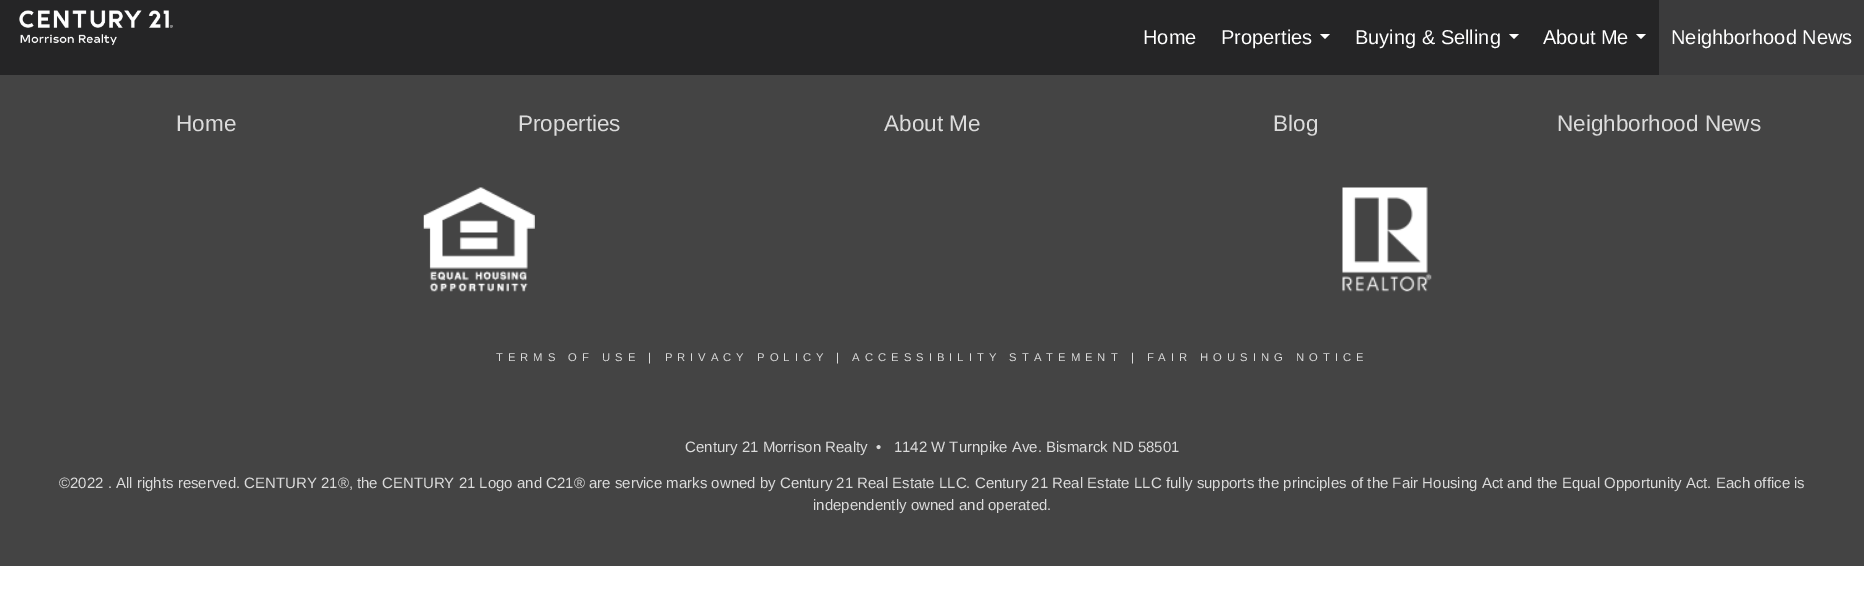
%!PS-Adobe-3.0
%%BoundingBox: 0 0 1864 598
%%LanguageLevel: 3
%%Pages: 1
%%EndComments
%%BeginProlog
/setink { dup -16 bitshift 255 div exch dup -8 bitshift 255 and 255 div exch 255 and 255 div setrgbcolor } def
/usefont { [ exch dup neg 0 0 3 -1 roll 0 0 ] selectfont } def
/drawimage { 5 dict begin { /h /w /y /x /name } { exch def } forall
  gsave x y translate w h scale
  w h 8 [w 0 0 h 0 0] name (r) file false 3 colorimage grestore end } def
%%EndProlog
%%BeginSetup
<< /PageSize [1864 598] >> setpagedevice
%%EndSetup
%%Page: 1 1
0 598 translate 1 -1 scale
4 setmiterlimit
16#FFFFFF setink
0 0 1864 598 rectfill
16#252526 setink
0 0 1659 75 rectfill
(img1.raw) 19 10 154 36 drawimage
/LiberationSans-Regular 20 usefont
16#FFFFFF setink
1143 44 moveto (Home) show
1221 44 moveto (Properties) show
1320 34 moveto 1330 34 lineto 1325 39 lineto closepath fill
1355 44 moveto (Buying & Selling) show
1509 34 moveto 1519 34 lineto 1514 39 lineto closepath fill
1543 44 moveto (About Me) show
1636 34 moveto 1646 34 lineto 1641 39 lineto closepath fill
16#3B3B3C setink
1659 0 205 75 rectfill
16#FFFFFF setink
1671 44 moveto (Neighborhood News) show
16#444444 setink
0 75 1864 491 rectfill
/LiberationSans-Regular 22.5 usefont
16#DBDBDB setink
[
    [(Home) 176 131]
    [(Properties) 518 131]
    [(About Me) 884 131]
    [(Blog) 1273 131]
    [(Neighborhood News) 1557 131]
] { aload pop moveto show } forall
(img2.raw) 423 187 112 105 drawimage
(img3.raw) 1342 187 90 105 drawimage
/LiberationSans-Regular 11.25 usefont
496 361 moveto 5 0 (TERMS OF USE | PRIVACY POLICY | ACCESSIBILITY STATEMENT | FAIR HOUSING NOTICE) ashow
/LiberationSans-Regular 15 usefont
[
    [(Century 21 Morrison Realty  •   1142 W Turnpike Ave. Bismarck ND 58501) 685 452]
    [(©2022 . All rights reserved. CENTURY 21®, the CENTURY 21 Logo and C21® are service marks owned by Century 21 Real Estate LLC. Century 21 Real Estate LLC fully supports the principles of the Fair Housing Act and the Equal Opportunity Act. Each office is) 59 488]
    [(independently owned and operated.) 813 510]
] { aload pop moveto show } forall
showpage
%%EOF
